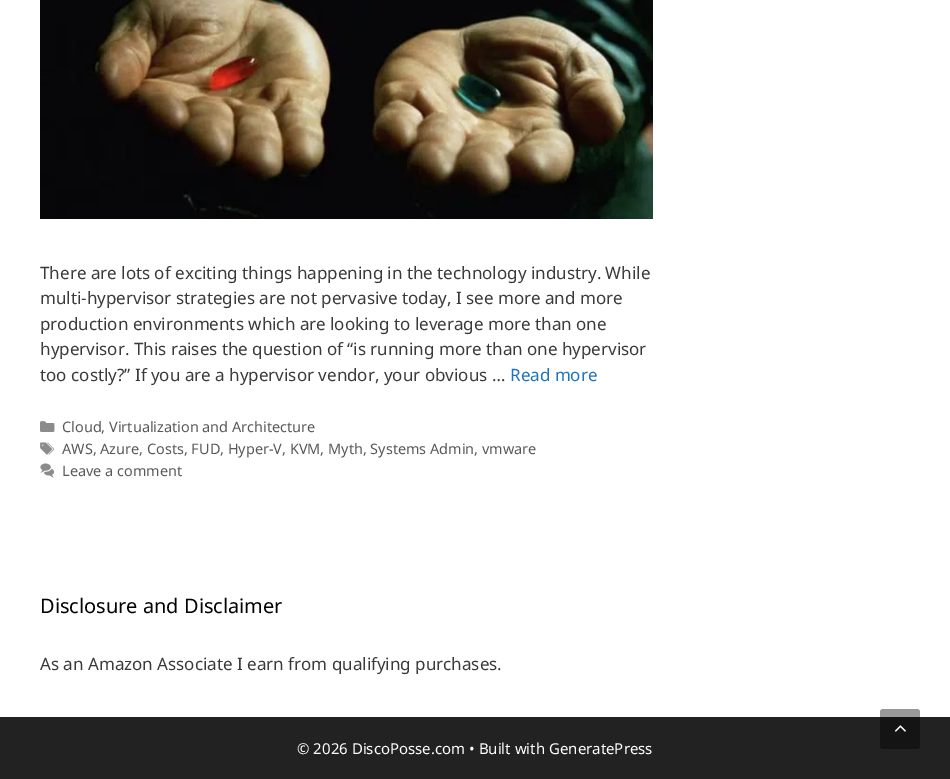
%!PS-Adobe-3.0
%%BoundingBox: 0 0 950 779
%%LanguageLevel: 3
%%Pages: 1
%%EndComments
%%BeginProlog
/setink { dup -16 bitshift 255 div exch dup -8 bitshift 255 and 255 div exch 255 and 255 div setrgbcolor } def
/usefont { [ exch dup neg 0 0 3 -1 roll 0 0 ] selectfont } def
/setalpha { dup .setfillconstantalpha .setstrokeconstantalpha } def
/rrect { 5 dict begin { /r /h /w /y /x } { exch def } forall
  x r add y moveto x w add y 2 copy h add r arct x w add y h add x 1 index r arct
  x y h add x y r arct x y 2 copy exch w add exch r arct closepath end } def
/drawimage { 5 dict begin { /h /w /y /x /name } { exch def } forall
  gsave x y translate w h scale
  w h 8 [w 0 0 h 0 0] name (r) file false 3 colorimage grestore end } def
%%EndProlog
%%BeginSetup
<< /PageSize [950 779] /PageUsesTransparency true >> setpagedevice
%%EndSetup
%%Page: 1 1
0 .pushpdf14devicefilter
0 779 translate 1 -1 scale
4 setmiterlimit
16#FFFFFF setink
0 0 950 779 rectfill
(img1.raw) 40 0 613 219 drawimage
/NotoSans-Regular 17 usefont
16#3A3A3A setink
[
    [(There are lots of exciting things happening in the technology industry. While) 40 279]
    [(multi-hypervisor strategies are not pervasive today, I see more and more) 40 304]
    [(production environments which are looking to leverage more than one) 40 330]
    [(hypervisor. This raises the question of “is running more than one hypervisor) 40 355]
    [(too costly?” If you are a hypervisor vendor, your obvious …) 40 381]
] { aload pop moveto show } forall
16#1E73BE setink
510 381 moveto (Read more) show
(img2.raw) 40 421 15 11 drawimage
/NotoSans-Regular 14.45 usefont
16#595959 setink
62 432 moveto (Cloud, Virtualization and Architecture) show
(img3.raw) 40 442 15 13 drawimage
62 454 moveto (AWS, Azure, Costs, FUD, Hyper-V, KVM, Myth, Systems Admin, vmware) show
(img4.raw) 40 463 14 15 drawimage
62 476 moveto (Leave a comment) show
/NotoSans-Regular 20 usefont
16#000000 setink
40 613 moveto (Disclosure and Disclaimer) show
/NotoSans-Regular 17 usefont
16#3A3A3A setink
40 670 moveto (As an Amazon Associate I earn from qualifying purchases.) show
16#222222 setink
0 717 950 62 rectfill
/NotoSans-Regular 15 usefont
16#FFFFFF setink
297 754 moveto (© 2026 DiscoPosse.com • Built with GeneratePress) show
0.4 setalpha
16#000000 setink
880 709 40 40 3 rrect fill
1 setalpha
(img5.raw) 894 725 12 7 drawimage
.poppdf14devicefilter showpage
%%EOF
